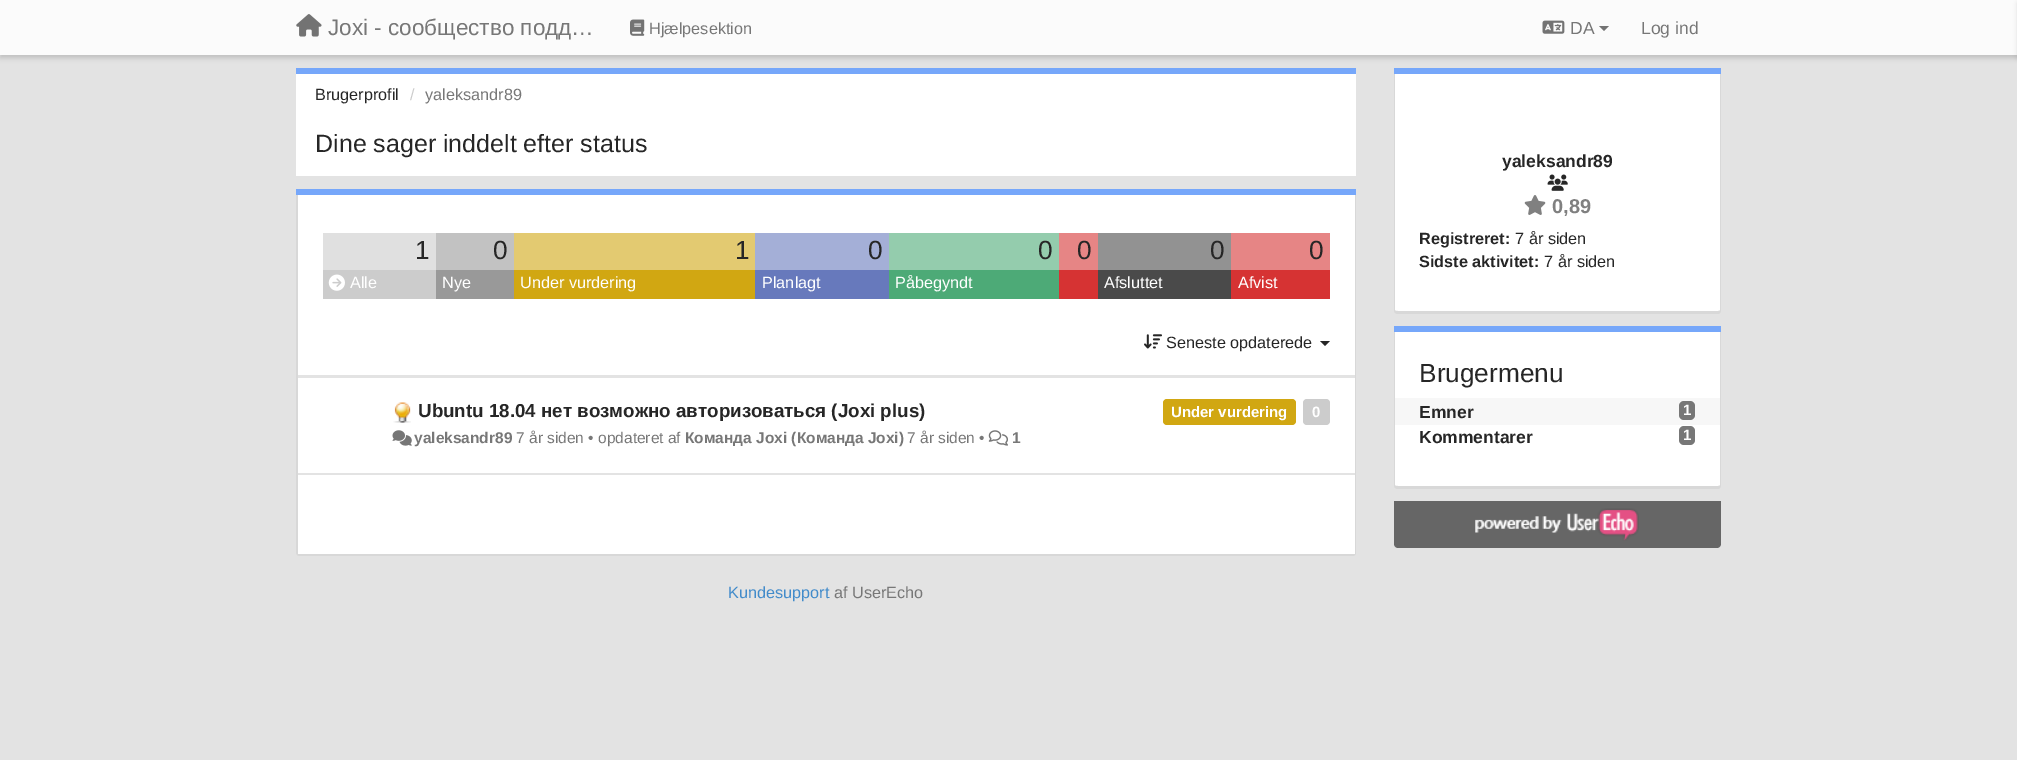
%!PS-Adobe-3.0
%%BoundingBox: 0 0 2017 760
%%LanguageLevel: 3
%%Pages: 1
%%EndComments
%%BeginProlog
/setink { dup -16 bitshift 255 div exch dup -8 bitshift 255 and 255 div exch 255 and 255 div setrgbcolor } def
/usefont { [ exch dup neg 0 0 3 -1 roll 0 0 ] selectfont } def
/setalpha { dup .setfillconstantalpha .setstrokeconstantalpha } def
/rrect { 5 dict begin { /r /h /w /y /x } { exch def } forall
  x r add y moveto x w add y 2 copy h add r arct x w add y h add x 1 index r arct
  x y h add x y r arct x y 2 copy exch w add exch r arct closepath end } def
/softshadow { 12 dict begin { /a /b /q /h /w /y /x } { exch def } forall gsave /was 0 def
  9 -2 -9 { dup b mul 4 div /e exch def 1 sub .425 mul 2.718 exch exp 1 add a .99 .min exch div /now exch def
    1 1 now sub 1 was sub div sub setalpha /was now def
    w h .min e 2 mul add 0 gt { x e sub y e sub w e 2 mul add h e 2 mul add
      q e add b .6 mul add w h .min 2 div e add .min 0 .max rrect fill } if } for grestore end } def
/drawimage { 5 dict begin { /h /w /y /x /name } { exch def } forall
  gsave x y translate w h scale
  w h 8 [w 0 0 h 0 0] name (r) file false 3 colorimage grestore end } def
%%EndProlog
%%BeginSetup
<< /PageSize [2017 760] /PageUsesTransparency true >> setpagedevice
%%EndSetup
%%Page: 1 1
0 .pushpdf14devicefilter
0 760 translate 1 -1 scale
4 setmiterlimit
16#E3E3E3 setink
0 0 2017 760 rectfill
16#000000 setink
0 3 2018 55 0 2.5 0.15 softshadow
16#FBFBFB setink
0 0 2017 55 rectfill
(img1.raw) 296 14 26 23 drawimage
/LiberationSans-Regular 22.5 usefont
16#777777 setink
328 35 moveto (Joxi - сообщество подд…) show
(img2.raw) 630 19 15 17 drawimage
/LiberationSans-Regular 16.25 usefont
649 34 moveto (Hjælpesektion) show
(img3.raw) 1542 20 23 14 drawimage
/LiberationSans-Regular 17.5 usefont
1570 34 moveto (DA) show
16#737373 setink
1599 26 moveto 1609 26 lineto 1604 31 lineto closepath fill
16#777777 setink
1641 34 moveto (Log ind) show
16#000000 setink
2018 3 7 55 0 2.5 0.15 softshadow
16#FFFFFF setink
296 74 1060 102 rectfill
16#76A7FA setink
296 68 1060 6 rectfill
/LiberationSans-Regular 16.25 usefont
16#262626 setink
315 100 moveto (Brugerprofil) show
16#CCCCCC setink
410 100 moveto (/) show
16#777777 setink
425 100 moveto (yaleksandr89) show
/LiberationSans-Regular 25 usefont
16#262626 setink
315 152 moveto (Dine sager inddelt efter status) show
16#76A7FA setink
296 189 1060 6 rectfill
16#D8D8D8 setink
296 195 moveto 1356 195 lineto 1356 552 lineto 1356 555 1355 556 1352 556 curveto 300 556 lineto 298 556 296 555 296 552 curveto closepath 298 195 moveto 1355 195 lineto 1355 552 lineto 1355 553 1354 554 1352 554 curveto 300 554 lineto 299 554 298 553 298 552 curveto closepath eofill
16#FFFFFF setink
298 195 1057 180 rectfill
16#E0E0E0 setink
323 233 113 37 rectfill
/LiberationSans-Regular 26.25 usefont
16#262626 setink
415 259 moveto (1) show
16#C2C2C2 setink
436 233 78 37 rectfill
16#262626 setink
493 259 moveto (0) show
16#E3CA71 setink
514 233 241 37 rectfill
16#262626 setink
735 259 moveto (1) show
16#A4AFD7 setink
755 233 134 37 rectfill
16#262626 setink
868 259 moveto (0) show
16#94CCAD setink
889 233 170 37 rectfill
16#262626 setink
1038 259 moveto (0) show
16#E68585 setink
1059 233 39 37 rectfill
16#262626 setink
1077 259 moveto (0) show
16#929292 setink
1098 233 133 37 rectfill
16#262626 setink
1210 259 moveto (0) show
16#E68585 setink
1231 233 99 37 rectfill
16#262626 setink
1309 259 moveto (0) show
16#CCCCCC setink
323 270 113 29 rectfill
(img4.raw) 328 274 17 17 drawimage
/LiberationSans-Regular 16.25 usefont
16#FFFFFF setink
350 288 moveto (Alle) show
16#999999 setink
436 270 78 29 rectfill
16#FFFFFF setink
442 288 moveto (Nye) show
16#D1A712 setink
514 270 241 29 rectfill
16#FFFFFF setink
520 288 moveto (Under vurdering) show
16#6779BC setink
755 270 134 29 rectfill
16#FFFFFF setink
762 288 moveto (Planlagt) show
16#4DAA77 setink
889 270 170 29 rectfill
16#FFFFFF setink
895 288 moveto (Påbegyndt) show
16#D63333 setink
1059 270 39 29 rectfill
16#4A4A4A setink
1098 270 133 29 rectfill
16#FFFFFF setink
1104 288 moveto (Afsluttet) show
16#D63333 setink
1231 270 99 29 rectfill
16#FFFFFF setink
1238 288 moveto (Afvist) show
(img5.raw) 1144 334 18 15 drawimage
16#262626 setink
1166 348 moveto (Seneste opdaterede) show
1320 341 moveto 1330 341 lineto 1325 346 lineto closepath fill
16#FFFFFF setink
298 378 1057 95 rectfill
(img6.raw) 393 402 18 21 drawimage
/LiberationSans-Bold 18.75 usefont
16#262626 setink
418 417 moveto (Ubuntu 18.04 нет возможно авторизоваться \(Joxi plus\)) show
16#D1A712 setink
1163 399 133 26 4 rrect fill
/LiberationSans-Bold 15 usefont
16#FFFFFF setink
1171 417 moveto (Under vurdering) show
16#CCCCCC setink
1303 399 27 26 4 rrect fill
16#FFFFFF setink
1312 417 moveto (0) show
(img7.raw) 392 430 20 16 drawimage
/LiberationSans-Bold 15.5 usefont
16#777777 setink
414 443 moveto (yaleksandr89) show
/LiberationSans-Regular 15.5 usefont
516 443 moveto (7 år siden • opdateret af) show
/LiberationSans-Bold 15.5 usefont
685 443 moveto (Команда Joxi \(Команда Joxi\)) show
/LiberationSans-Regular 15.5 usefont
907 443 moveto (7 år siden •) show
(img8.raw) 988 430 20 16 drawimage
/LiberationSans-Bold 15.5 usefont
1012 443 moveto (1) show
16#FFFFFF setink
298 475 1057 79 rectfill
/LiberationSans-Regular 16.25 usefont
16#428BCA setink
728 598 moveto (Kundesupport) show
16#777777 setink
834 598 moveto (af UserEcho) show
16#76A7FA setink
1394 68 327 6 rectfill
16#FFFFFF setink
1395 74 moveto 1720 74 lineto 1720 310 lineto 1720 311 1719 311 1718 311 curveto 1398 311 lineto 1396 311 1395 311 1395 310 curveto closepath fill
16#D8D8D8 setink
1394 74 moveto 1721 74 lineto 1721 310 lineto 1721 312 1720 314 1718 314 curveto 1398 314 lineto 1395 314 1394 312 1394 310 curveto closepath 1395 74 moveto 1720 74 lineto 1720 310 lineto 1720 311 1719 311 1718 311 curveto 1398 311 lineto 1396 311 1395 311 1395 310 curveto closepath eofill
/LiberationSans-Bold 17.5 usefont
16#262626 setink
1502 167 moveto (yaleksandr89) show
(img9.raw) 1547 174 21 17 drawimage
(img10.raw) 1524 195 22 20 drawimage
/LiberationSans-Bold 20 usefont
16#808080 setink
1552 213 moveto (0,89) show
/LiberationSans-Bold 16.25 usefont
16#262626 setink
1419 244 moveto (Registreret:) show
/LiberationSans-Regular 16.25 usefont
1515 244 moveto (7 år siden) show
/LiberationSans-Bold 16.25 usefont
1419 267 moveto (Sidste aktivitet:) show
/LiberationSans-Regular 16.25 usefont
1544 267 moveto (7 år siden) show
16#76A7FA setink
1394 326 327 6 rectfill
16#FFFFFF setink
1395 332 moveto 1720 332 lineto 1720 485 lineto 1720 486 1719 486 1718 486 curveto 1398 486 lineto 1396 486 1395 486 1395 485 curveto closepath fill
16#D8D8D8 setink
1394 332 moveto 1721 332 lineto 1721 485 lineto 1721 487 1720 489 1718 489 curveto 1398 489 lineto 1395 489 1394 487 1394 485 curveto closepath 1395 332 moveto 1720 332 lineto 1720 485 lineto 1720 486 1719 486 1718 486 curveto 1398 486 lineto 1396 486 1395 486 1395 485 curveto closepath eofill
/LiberationSans-Regular 26.25 usefont
16#262626 setink
1419 382 moveto (Brugermenu) show
16#F7F7F7 setink
1395 398 325 27 rectfill
/LiberationSans-Bold 17.5 usefont
16#262626 setink
1419 418 moveto (Emner) show
16#777777 setink
1679 401 16 19 5 rrect fill
/LiberationSans-Bold 15 usefont
16#FFFFFF setink
1683 415 moveto (1) show
/LiberationSans-Bold 17.5 usefont
16#262626 setink
1419 443 moveto (Kommentarer) show
16#777777 setink
1679 426 16 19 5 rrect fill
/LiberationSans-Bold 15 usefont
16#FFFFFF setink
1683 440 moveto (1) show
16#666666 setink
1394 501 moveto 1721 501 lineto 1721 544 lineto 1721 546 1719 548 1717 548 curveto 1398 548 lineto 1396 548 1394 546 1394 544 curveto closepath fill
(img11.raw) 1475 508 164 33 drawimage
.poppdf14devicefilter showpage
%%EOF
